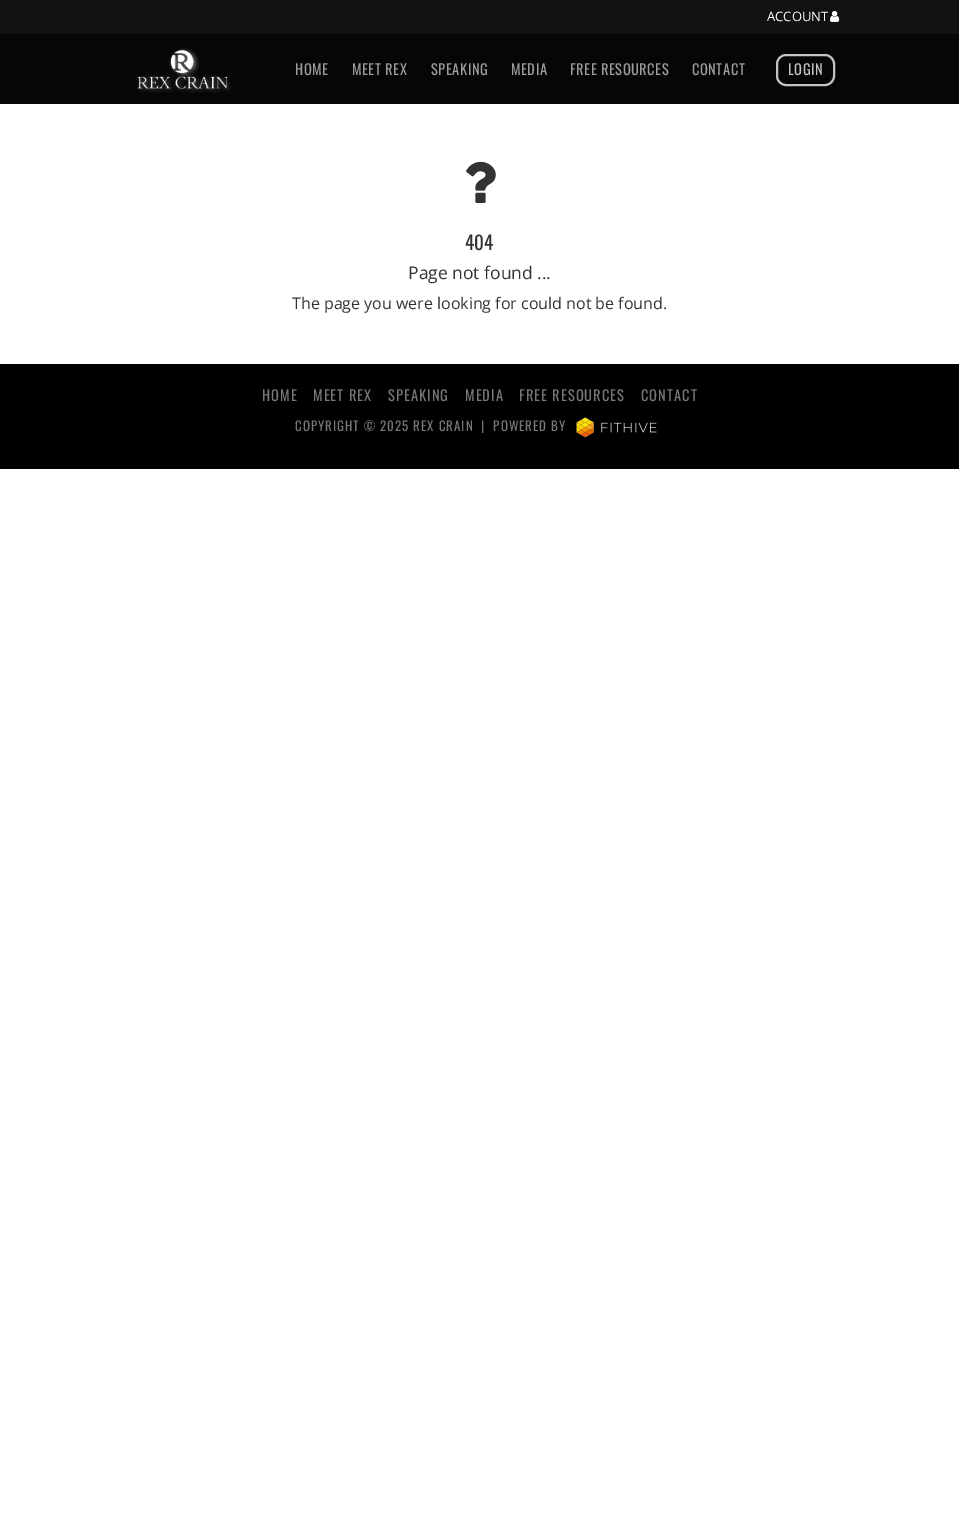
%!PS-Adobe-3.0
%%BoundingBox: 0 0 959 1531
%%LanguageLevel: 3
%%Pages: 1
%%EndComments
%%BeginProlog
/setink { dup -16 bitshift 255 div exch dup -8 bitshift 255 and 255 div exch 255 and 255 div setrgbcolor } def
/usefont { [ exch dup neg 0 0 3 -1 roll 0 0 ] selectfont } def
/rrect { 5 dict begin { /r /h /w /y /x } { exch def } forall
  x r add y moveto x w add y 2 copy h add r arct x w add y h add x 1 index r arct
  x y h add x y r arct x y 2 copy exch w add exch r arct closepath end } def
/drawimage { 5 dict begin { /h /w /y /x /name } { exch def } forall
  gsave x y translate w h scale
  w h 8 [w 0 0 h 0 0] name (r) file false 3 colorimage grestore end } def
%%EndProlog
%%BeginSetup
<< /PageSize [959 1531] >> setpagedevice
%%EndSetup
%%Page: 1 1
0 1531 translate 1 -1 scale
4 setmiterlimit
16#FFFFFF setink
0 0 959 1531 rectfill
16#050606 setink
0 34 959 70 rectfill
16#121212 setink
0 0 959 34 rectfill
/OpenSans-Regular 13 usefont
16#FFFFFF setink
767 21 moveto (ACCOUNT) show
(img1.raw) 830 11 10 11 drawimage
(img2.raw) 137 48 94 45 drawimage
/Oswald-Regular 14.5 usefont
16#9D9D9D setink
295 75 moveto 0.5 0 (HOME) ashow
352 75 moveto 0.5 0 (MEET REX) ashow
431 75 moveto 0.5 0 (SPEAKING) ashow
511 75 moveto 0.5 0 (MEDIA) ashow
570 75 moveto 0.5 0 (FREE RESOURCES) ashow
692 75 moveto 0.5 0 (CONTACT) ashow
16#C3C2C5 setink
2 setlinewidth
777 55 57 30 9 rrect stroke
788 75 moveto 0.5 0 (LOGIN) ashow
(img3.raw) 466 161 30 42 drawimage
/Oswald-Regular 19 usefont
16#333333 setink
465 250 moveto (404) show
/OpenSans-Regular 17.5 usefont
408 279 moveto (Page not found ...) show
/OpenSans-Regular 16 usefont
292 309 moveto (The page you were looking for could not be found.) show
16#000000 setink
0 364 959 105 rectfill
/Oswald-Regular 14.5 usefont
16#787878 setink
262 401 moveto 1 0 (HOME) ashow
313 401 moveto 1 0 (MEET REX) ashow
388 401 moveto 1 0 (SPEAKING) ashow
465 401 moveto 1 0 (MEDIA) ashow
519 401 moveto 1 0 (FREE RESOURCES) ashow
641 401 moveto 1 0 (CONTACT) ashow
/Oswald-Regular 13 usefont
295 431 moveto 1 0 (COPYRIGHT © 2025 REX CRAIN  |  POWERED BY) ashow
(img4.raw) 576 417 81 21 drawimage
showpage
%%EOF
